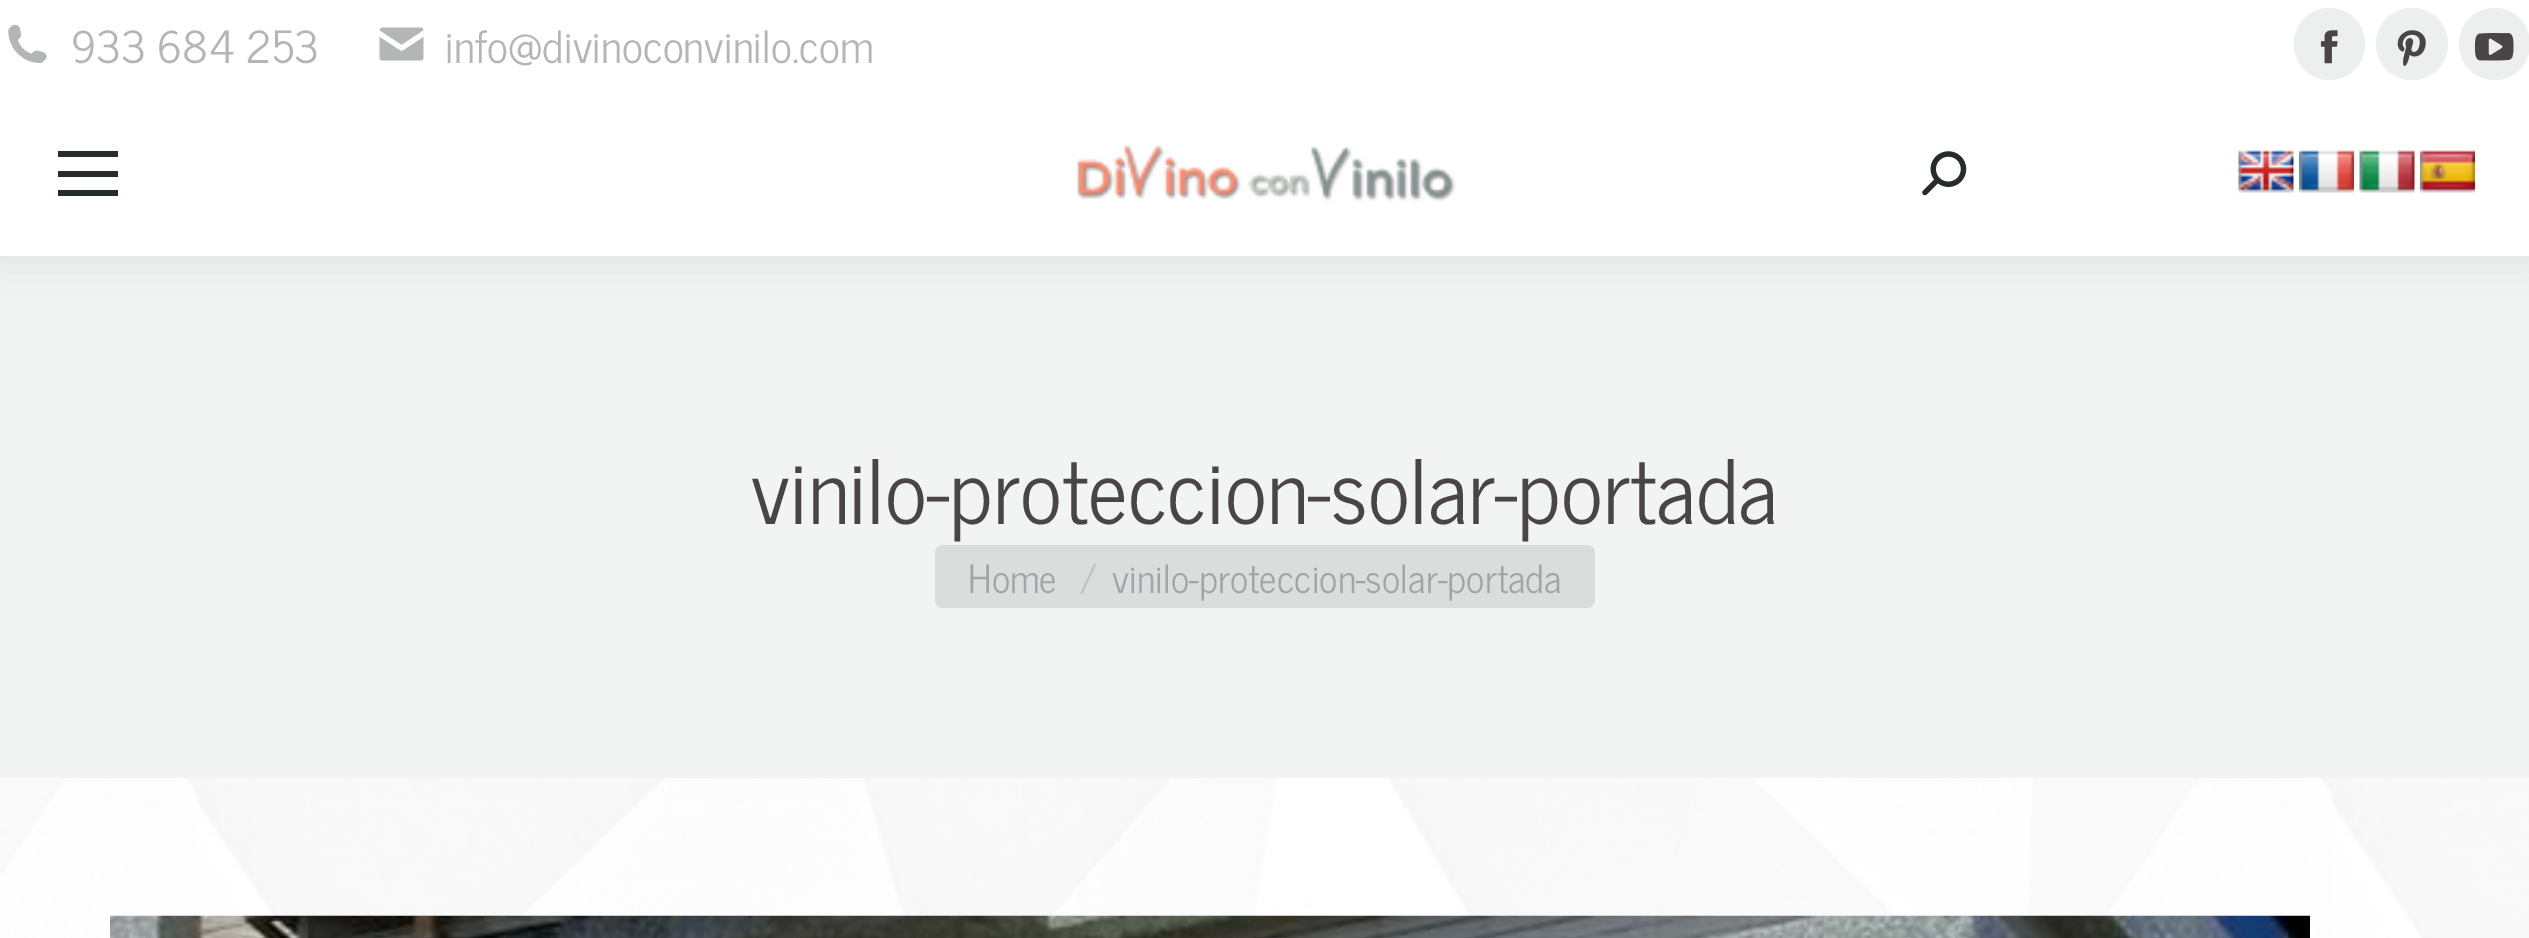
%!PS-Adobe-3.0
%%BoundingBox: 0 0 2529 938
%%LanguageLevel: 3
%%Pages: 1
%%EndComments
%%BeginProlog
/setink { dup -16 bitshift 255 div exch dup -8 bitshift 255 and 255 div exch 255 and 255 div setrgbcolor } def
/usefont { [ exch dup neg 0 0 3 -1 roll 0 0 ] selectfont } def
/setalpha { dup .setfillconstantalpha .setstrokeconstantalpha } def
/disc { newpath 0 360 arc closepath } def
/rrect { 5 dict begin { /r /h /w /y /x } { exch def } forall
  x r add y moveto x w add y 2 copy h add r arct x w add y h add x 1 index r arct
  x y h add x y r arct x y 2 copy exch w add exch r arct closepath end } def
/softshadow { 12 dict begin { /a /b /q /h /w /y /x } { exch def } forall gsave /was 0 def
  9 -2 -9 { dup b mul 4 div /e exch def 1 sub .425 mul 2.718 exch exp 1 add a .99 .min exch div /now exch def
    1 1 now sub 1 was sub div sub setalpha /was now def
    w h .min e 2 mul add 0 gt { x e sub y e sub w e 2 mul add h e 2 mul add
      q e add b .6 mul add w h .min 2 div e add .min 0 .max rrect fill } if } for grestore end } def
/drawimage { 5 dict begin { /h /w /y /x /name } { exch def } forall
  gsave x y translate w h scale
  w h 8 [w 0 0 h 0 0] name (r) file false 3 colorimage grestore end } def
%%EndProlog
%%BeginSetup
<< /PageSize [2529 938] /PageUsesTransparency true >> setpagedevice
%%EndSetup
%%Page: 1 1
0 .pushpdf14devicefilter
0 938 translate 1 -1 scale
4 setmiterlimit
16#FFFFFF setink
0 0 2529 938 rectfill
(img1.raw) 0 778 2529 160 drawimage
16#F2F3F3 setink
0 256 2529 522 rectfill
16#000000 setink
-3 -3 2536 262 0 20.5 0.07 softshadow
16#FFFFFF setink
0 0 2529 256 rectfill
(img2.raw) 8 24 39 39 drawimage
/NewsCycle-Regular 44 usefont
16#B3B5B6 setink
71 63 moveto (933 684 253) show
(img3.raw) 379 27 45 34 drawimage
445 63 moveto (info@divinoconvinilo.com) show
16#EDEEEE setink
2294 8 71 72 35.5 rrect fill
(img4.raw) 2320 30 18 34 drawimage
2412 44 36 disc fill
(img5.raw) 2397 30 29 36 drawimage
2459 8 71 72 35.5 rrect fill
(img6.raw) 2475 33 39 28 drawimage
[
    [58 151 60 6 16#262B2E]
    [58 171 60 6 16#262B2E]
    [58 190 60 6 16#262B2E]
] { aload pop setink rectfill } forall
(img7.raw) 1077 145 379 57 drawimage
(img8.raw) 1922 151 45 45 drawimage
(img9.raw) 2238 150 56 43 drawimage
(img10.raw) 2299 150 55 43 drawimage
(img11.raw) 2359 150 56 43 drawimage
(img12.raw) 2420 150 55 43 drawimage
/NewsCycle-Regular 88 usefont
16#494546 setink
751 524 moveto (vinilo-proteccion-solar-portada) show
16#DBDDDD setink
935 545 660 63 8 rrect fill
/NewsCycle-Regular 38.5 usefont
16#A2A5A6 setink
968 593 moveto (Home) show
16#BFC1C2 setink
1079 593 moveto (/) show
16#A2A5A6 setink
1112 593 moveto (vinilo-proteccion-solar-portada) show
(img13.raw) 110 915 2200 23 drawimage
.poppdf14devicefilter showpage
%%EOF
